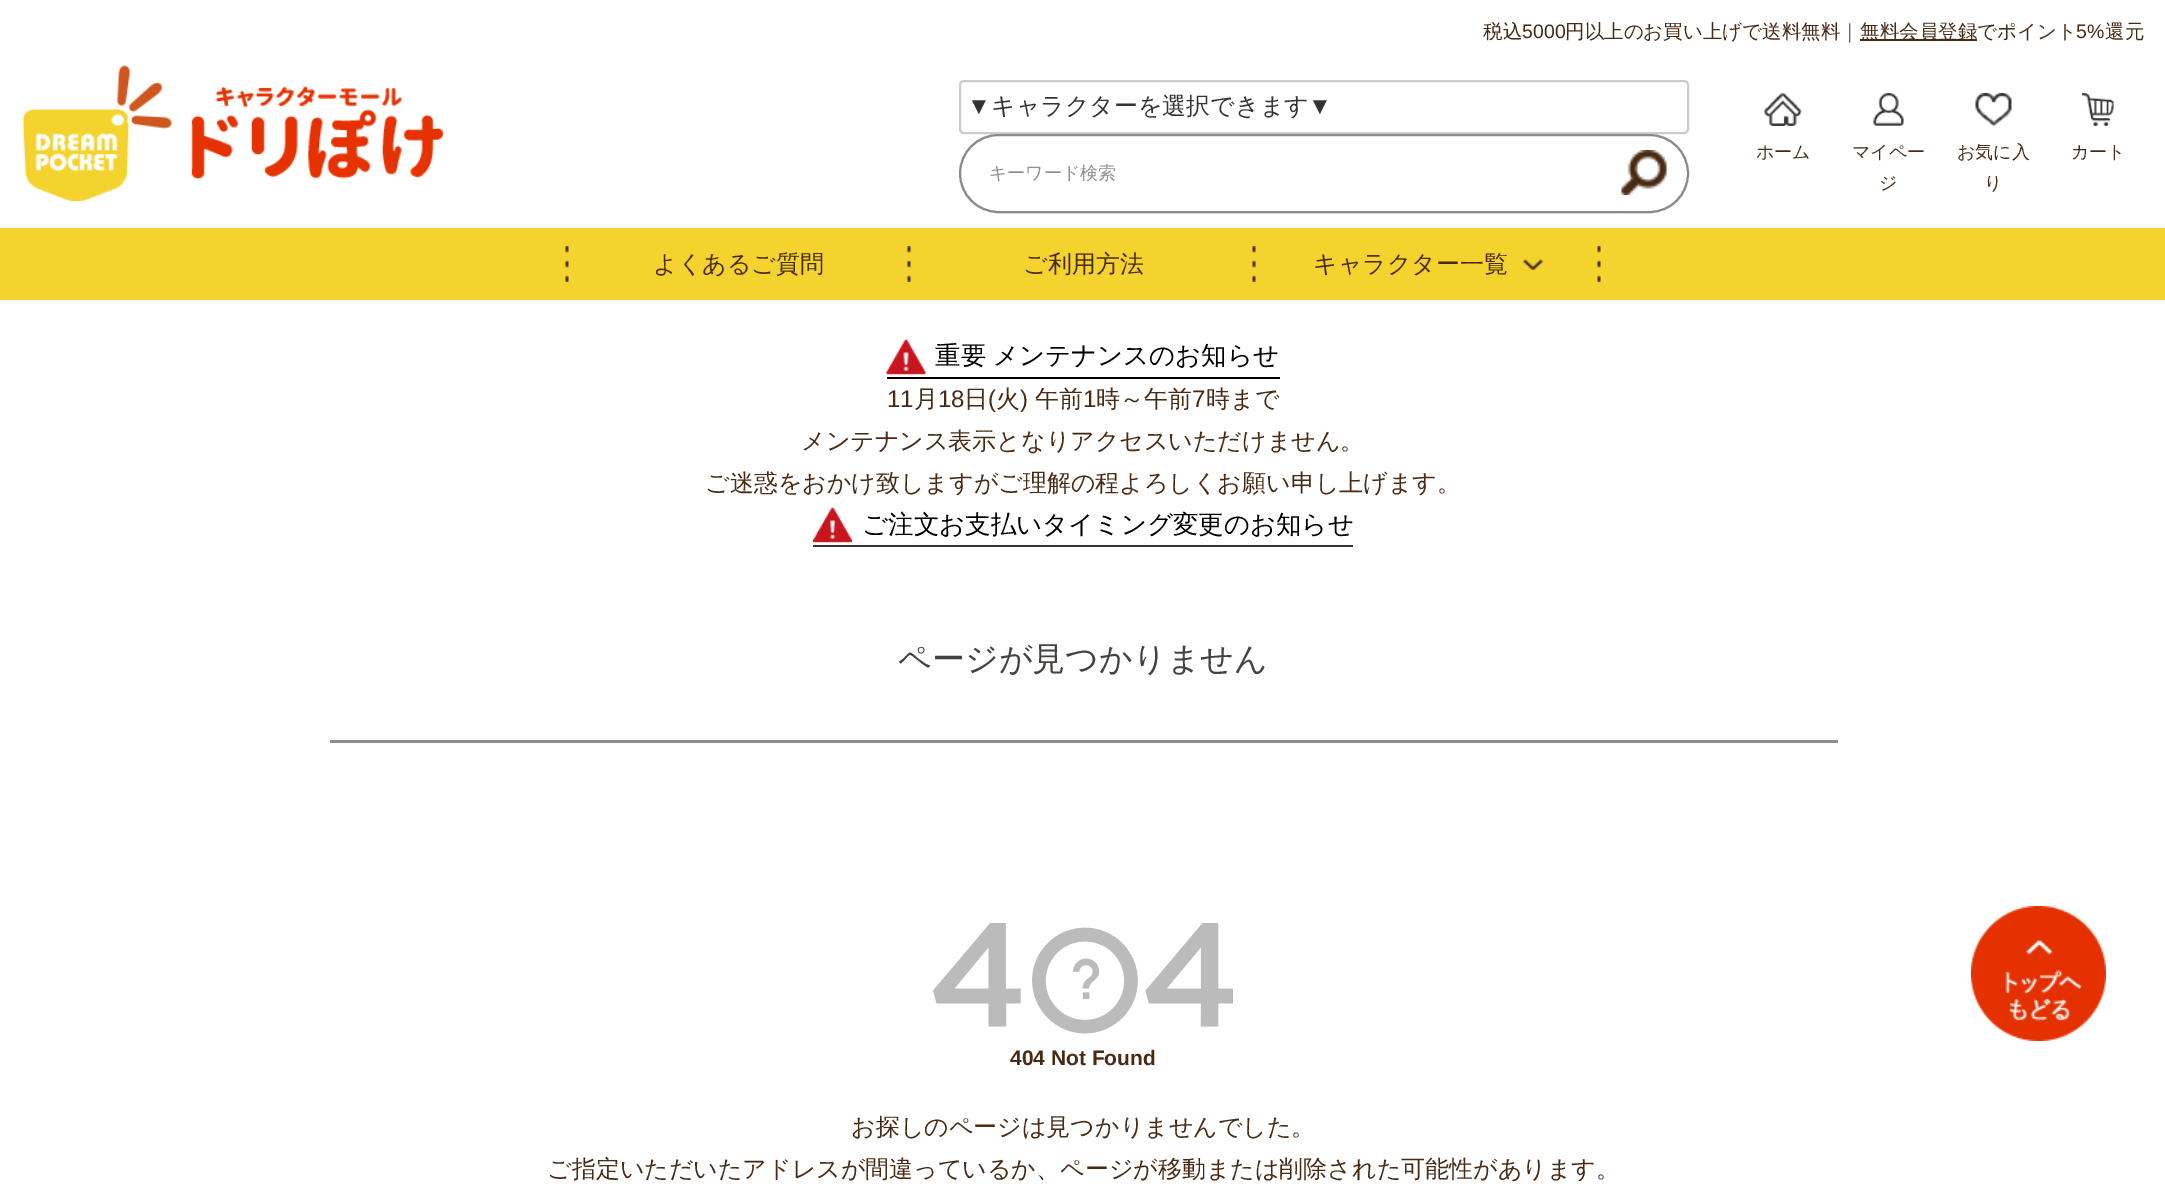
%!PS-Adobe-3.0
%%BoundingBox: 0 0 2165 1190
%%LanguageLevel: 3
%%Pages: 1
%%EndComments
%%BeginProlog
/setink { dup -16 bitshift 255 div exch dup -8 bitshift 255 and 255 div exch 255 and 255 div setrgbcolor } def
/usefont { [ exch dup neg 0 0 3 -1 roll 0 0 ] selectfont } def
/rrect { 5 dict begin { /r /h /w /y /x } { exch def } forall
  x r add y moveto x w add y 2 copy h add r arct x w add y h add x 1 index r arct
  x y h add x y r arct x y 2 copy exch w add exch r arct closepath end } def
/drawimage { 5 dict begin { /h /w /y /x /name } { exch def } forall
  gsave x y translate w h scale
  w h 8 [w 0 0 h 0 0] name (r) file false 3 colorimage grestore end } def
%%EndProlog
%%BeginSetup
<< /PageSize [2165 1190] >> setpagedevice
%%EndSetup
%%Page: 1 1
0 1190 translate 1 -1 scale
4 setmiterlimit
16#FFFFFF setink
0 0 2165 1190 rectfill
/WenQuanYiZenHei-Medium 19.5 usefont
16#492A13 setink
1483 38 moveto (税込) show
/LiberationSans-Regular 19.5 usefont
1522 38 moveto (5000) show
/WenQuanYiZenHei-Medium 19.5 usefont
1565 38 moveto (円以上のお買い上げで送料無料｜) show
1860 39 117 2 rectfill
1860 38 moveto (無料会員登録でポイント) show
/LiberationSans-Regular 19.5 usefont
2076 38 moveto (5%) show
/WenQuanYiZenHei-Medium 19.5 usefont
2105 38 moveto (還元) show
(img1.raw) 22 65 422 136 drawimage
16#CCCCCC setink
2 setlinewidth
960 81 728 52 4 rrect stroke
/LiberationSans-Regular 24 usefont
16#333333 setink
967 114 moveto (▼) show
/WenQuanYiZenHei-Medium 24 usefont
991 114 moveto (キャラクターを選択できます) show
/LiberationSans-Regular 24 usefont
1308 114 moveto (▼) show
16#898989 setink
960 135 728 77 38.5 rrect stroke
/WenQuanYiZenHei-Medium 18 usefont
16#919191 setink
989 179 moveto (キーワード検索) show
(img2.raw) 1621 150 46 45 drawimage
(img3.raw) 1764 93 38 33 drawimage
16#492A13 setink
1756 158 moveto (ホーム) show
(img4.raw) 1873 93 31 33 drawimage
1852 158 moveto (マイペー) show
1879 189 moveto (ジ) show
(img5.raw) 1975 93 37 33 drawimage
1957 158 moveto (お気に入) show
1984 189 moveto (り) show
(img6.raw) 2082 93 32 33 drawimage
2071 158 moveto (カート) show
16#F4D32F setink
0 228 2165 72 rectfill
(img7.raw) 907 246 4 36 drawimage
(img7.raw) 565 246 4 36 drawimage
/WenQuanYiZenHei-Medium 24 usefont
16#492A13 setink
653 272 moveto (よくあるご質問) show
(img7.raw) 1252 246 4 36 drawimage
1023 272 moveto (ご利用方法) show
(img7.raw) 1597 246 4 36 drawimage
1313 272 moveto (キャラクター一覧) show
(img8.raw) 1522 259 22 11 drawimage
16#000000 setink
887 377 393 2 rectfill
(img9.raw) 886 339 40 36 drawimage
/WenQuanYiZenHei-Medium 25.5 usefont
935 364 moveto -1 0 32 (重要 メンテナンスのお知らせ) widthshow
/LiberationSans-Regular 24 usefont
16#492A13 setink
887 407 moveto (11) show
/WenQuanYiZenHei-Medium 24 usefont
914 407 moveto (月) show
/LiberationSans-Regular 24 usefont
938 407 moveto (18) show
/WenQuanYiZenHei-Medium 24 usefont
964 407 moveto (日) show
/LiberationSans-Regular 24 usefont
988 407 moveto (\() show
/WenQuanYiZenHei-Medium 24 usefont
996 407 moveto (火) show
/LiberationSans-Regular 24 usefont
1020 407 moveto (\)) show
/WenQuanYiZenHei-Medium 24 usefont
1035 407 moveto (午前) show
/LiberationSans-Regular 24 usefont
1083 407 moveto (1) show
/WenQuanYiZenHei-Medium 24 usefont
1096 407 moveto (時～午前) show
/LiberationSans-Regular 24 usefont
1192 407 moveto (7) show
/WenQuanYiZenHei-Medium 24 usefont
[
    [(時まで) 1206 407]
    [(メンテナンス表示となりアクセスいただけません。) 801 449]
    [(ご迷惑をおかけ致しますがご理解の程よろしくお願い申し上げます。) 705 491]
] { aload pop moveto show } forall
16#333333 setink
813 545 540 2 rectfill
(img10.raw) 813 507 39 36 drawimage
/WenQuanYiZenHei-Medium 25.5 usefont
16#000000 setink
862 533 moveto (ご注文お支払いタイミング変更のお知らせ) show
16#928B8B setink
330 740 1508 3 rectfill
/WenQuanYiZenHei-Medium 33 usefont
16#46413F setink
898 670 moveto (ページが見つかりません) show
(img11.raw) 933 923 300 111 drawimage
/LiberationSans-Bold 21 usefont
16#492A13 setink
1010 1065 moveto (404 Not Found) show
/WenQuanYiZenHei-Medium 24 usefont
851 1135 moveto (お探しのページは見つかりませんでした。) show
547 1177 moveto (ご指定いただいたアドレスが間違っているか、ページが移動または削除された可能性があります。) show
(img12.raw) 1971 906 135 135 drawimage
showpage
%%EOF
